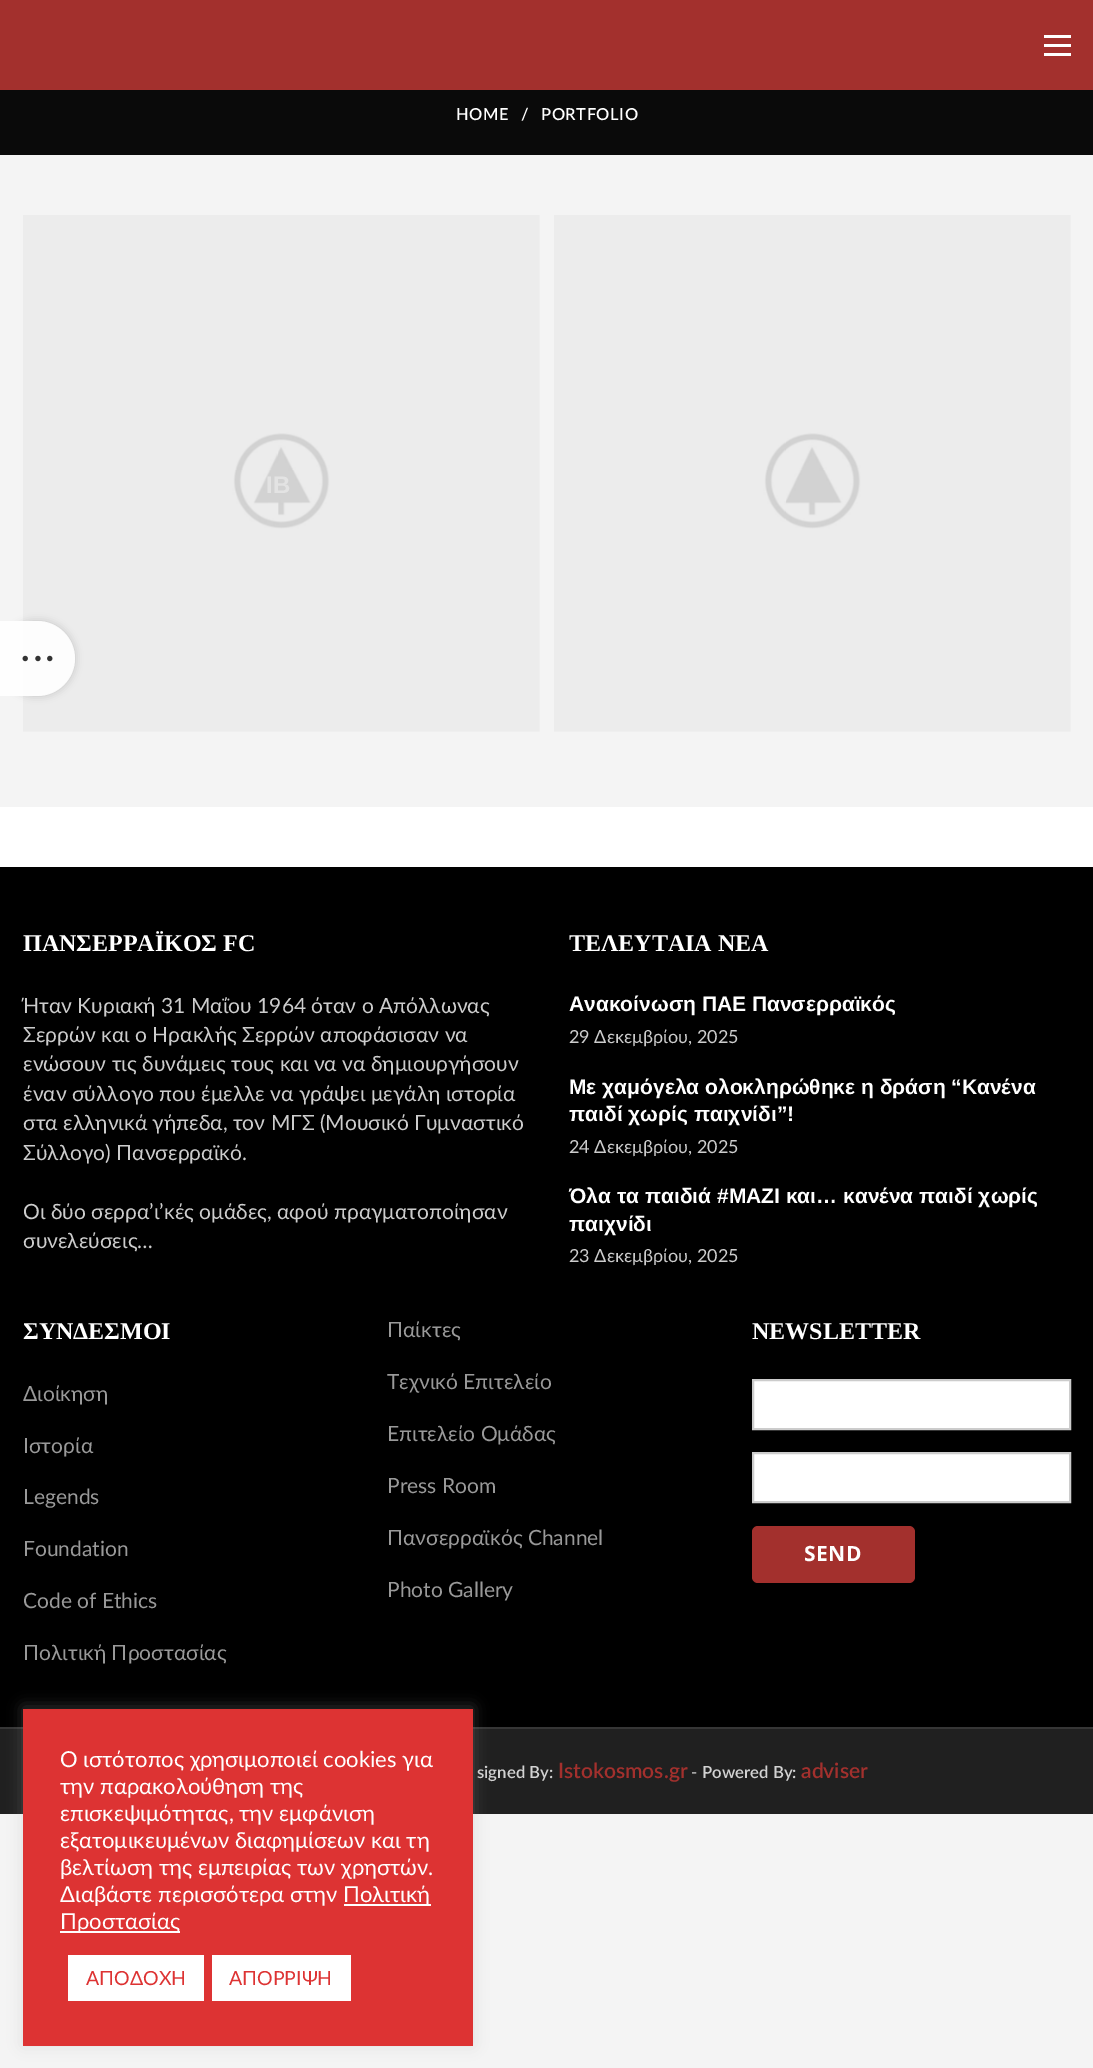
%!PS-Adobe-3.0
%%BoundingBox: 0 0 1093 2068
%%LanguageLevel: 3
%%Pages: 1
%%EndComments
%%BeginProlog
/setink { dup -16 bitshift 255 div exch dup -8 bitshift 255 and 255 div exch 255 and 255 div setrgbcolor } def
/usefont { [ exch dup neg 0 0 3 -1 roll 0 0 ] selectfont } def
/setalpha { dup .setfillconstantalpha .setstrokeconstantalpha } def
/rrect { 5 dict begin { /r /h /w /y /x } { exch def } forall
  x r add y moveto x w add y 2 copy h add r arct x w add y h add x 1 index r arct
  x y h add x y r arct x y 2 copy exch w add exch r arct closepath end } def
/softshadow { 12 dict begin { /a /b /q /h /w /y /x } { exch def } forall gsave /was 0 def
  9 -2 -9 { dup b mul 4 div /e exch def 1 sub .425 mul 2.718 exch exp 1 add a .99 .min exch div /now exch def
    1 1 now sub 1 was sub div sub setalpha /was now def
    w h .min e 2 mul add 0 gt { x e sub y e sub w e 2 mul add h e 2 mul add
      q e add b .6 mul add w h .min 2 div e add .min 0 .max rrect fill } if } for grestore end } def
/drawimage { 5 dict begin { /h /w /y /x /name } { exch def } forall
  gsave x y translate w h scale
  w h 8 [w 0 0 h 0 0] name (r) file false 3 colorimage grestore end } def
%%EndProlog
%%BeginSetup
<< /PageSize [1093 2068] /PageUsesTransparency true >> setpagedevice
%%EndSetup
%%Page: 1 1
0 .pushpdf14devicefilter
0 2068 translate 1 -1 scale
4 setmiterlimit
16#F4F4F4 setink
0 0 1093 2068 rectfill
[
    [0 807 1093 60 16#FFFFFF]
    [0 0 1093 90 16#A3302D]
    [1044 44 27 3 16#FFFFFF]
    [1044 35 27 3 16#FFFFFF]
    [1044 53 27 3 16#FFFFFF]
    [0 90 1093 65 16#0A0A0A]
] { aload pop setink rectfill } forall
/Lato-SemiBold 16.5 usefont
16#FFFFFF setink
456 120 moveto 0.5 0 (HOME) ashow
521 120 moveto 0.5 0 (/) ashow
541 120 moveto 0.5 0 (PORTFOLIO) ashow
(img1.raw) 23 215 517 517 drawimage
/LiberationSans-Bold 24 usefont
16#E3E3E3 setink
266 493 moveto (IB) show
(img2.raw) 554 215 517 517 drawimage
16#000000 setink
0 867 1093 860 rectfill
/LiberationSerif-Bold 24 usefont
16#FFFFFF setink
23 951 moveto (ΠΑΝΣΕΡΡΑΪΚΟΣ FC) show
/Lato-Regular 21 usefont
16#CCCCCC setink
[
    [(Ήταν Κυριακή 31 Μαΐου 1964 όταν ο Απόλλωνας) 23 1013]
    [(Σερρών και ο Ηρακλής Σερρών αποφάσισαν να) 23 1042]
    [(ενώσουν τις δυνάμεις τους και να να δημιουργήσουν) 23 1071]
    [(έναν σύλλογο που έμελλε να γράψει μεγάλη ιστορία) 23 1101]
    [(στα ελληνικά γήπεδα, τον ΜΓΣ \(Μουσικό Γυμναστικό) 23 1130]
    [(Σύλλογο\) Πανσερραϊκό.) 23 1160]
    [(Οι δύο σερρα’ι’κές ομάδες, αφού πραγματοποίησαν) 23 1219]
    [(συνελεύσεις…) 23 1248]
] { aload pop moveto show } forall
/LiberationSerif-Bold 24 usefont
16#FFFFFF setink
569 951 moveto (ΤΕΛΕΥΤΑΙΑ ΝΕΑ) show
/LiberationSans-Bold 21 usefont
569 1011 moveto (Ανακοίνωση ΠΑΕ Πανσερραϊκός) show
/Lato-Regular 18 usefont
16#CCCCCC setink
569 1043 moveto (29 Δεκεμβρίου, 2025) show
/LiberationSans-Bold 21 usefont
16#FFFFFF setink
569 1094 moveto (Με χαμόγελα ολοκληρώθηκε η δράση “Κανένα) show
569 1121 moveto (παιδί χωρίς παιχνίδι”!) show
/Lato-Regular 18 usefont
16#CCCCCC setink
569 1153 moveto (24 Δεκεμβρίου, 2025) show
/LiberationSans-Bold 21 usefont
16#FFFFFF setink
569 1203 moveto (Όλα τα παιδιά #ΜΑΖΙ και… κανένα παιδί χωρίς) show
569 1231 moveto (παιχνίδι) show
/Lato-Regular 18 usefont
16#CCCCCC setink
569 1262 moveto (23 Δεκεμβρίου, 2025) show
/LiberationSerif-Bold 24 usefont
16#FFFFFF setink
23 1339 moveto (ΣΥΝΔΕΣΜΟΙ) show
/Lato-Regular 21 usefont
16#999999 setink
[
    [(Διοίκηση) 23 1401]
    [(Ιστορία) 23 1453]
    [(Legends) 23 1504]
    [(Foundation) 23 1556]
    [(Code of Ethics) 23 1608]
    [(Πολιτική Προστασίας) 23 1660]
    [(Παίκτες) 387 1337]
    [(Τεχνικό Επιτελείο) 387 1389]
    [(Επιτελείο Ομάδας) 387 1441]
    [(Press Room) 387 1493]
    [(Πανσερραϊκός Channel) 387 1545]
    [(Photo Gallery) 387 1597]
] { aload pop moveto show } forall
/LiberationSerif-Bold 24 usefont
16#FFFFFF setink
752 1339 moveto (NEWSLETTER) show
753 1380 moveto 1070 1380 lineto 1070 1429 lineto 753 1429 lineto closepath gsave fill grestore
16#CCCCCC setink
2 setlinewidth
stroke
16#FFFFFF setink
753 1453 moveto 1070 1453 lineto 1070 1502 lineto 753 1502 lineto closepath gsave fill grestore
16#CCCCCC setink
stroke
16#A3302D setink
752 1526 163 57 6 rrect fill
/OpenSans-Bold 21 usefont
16#FFFFFF setink
804 1561 moveto 0.5 0 (SEND) ashow
16#202020 setink
0 1729 1093 85 rectfill
16#363636 setink
0 1727 1093 2 rectfill
/Lato-SemiBold 16.75 usefont
16#D2D2D2 setink
477 1778 moveto (signed By:) show
/Lato-SemiBold 21 usefont
16#A3302D setink
558 1778 moveto (Istokosmos.gr) show
/Lato-Regular 16.75 usefont
16#D2D2D2 setink
691 1778 moveto (-) show
/Lato-SemiBold 16.75 usefont
702 1778 moveto (Powered By:) show
/Lato-SemiBold 21 usefont
16#A3302D setink
801 1778 moveto (adviser) show
gsave
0 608 moveto 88 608 lineto 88 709 lineto 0 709 lineto closepath 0 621 moveto 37.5 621 lineto 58 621 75 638 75 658.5 curveto 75 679 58 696 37.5 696 curveto 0 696 lineto closepath eoclip newpath
16#000000 setink
0 621 75 75 37.5 4 0.17 softshadow
grestore
0.9 setalpha
16#FFFFFF setink
0 621 moveto 37.5 621 lineto 58 621 75 638 75 658.5 curveto 75 679 58 696 37.5 696 curveto 0 696 lineto closepath fill
1 setalpha
(img3.raw) 22 655 31 7 drawimage
16#ACABAB setink
23 1707 450 338 0 7.5 0.3 softshadow
16#DD3333 setink
23 1709 450 337 rectfill
/Lato-Regular 22 usefont
16#FFFFFF setink
[
    [(Ο ιστότοπος χρησιμοποιεί cookies για) 60 1767]
    [(την παρακολούθηση της) 60 1794]
    [(επισκεψιμότητας, την εμφάνιση) 60 1821]
    [(εξατομικευμένων διαφημίσεων και τη) 60 1848]
    [(βελτίωση της εμπειρίας των χρηστών.) 60 1875]
    [(Διαβάστε περισσότερα στην) 60 1902]
] { aload pop moveto show } forall
344 1904 87 2 rectfill
343 1902 moveto (Πολιτική) show
60 1931 120 2 rectfill
60 1929 moveto (Προστασίας) show
68 1955 136 46 rectfill
/Lato-Regular 19.5 usefont
16#DD3333 setink
86 1985 moveto (ΑΠΟΔΟΧΗ) show
16#FFFFFF setink
212 1955 139 46 rectfill
16#DD3333 setink
229 1985 moveto (ΑΠΟΡΡΙΨΗ) show
.poppdf14devicefilter showpage
%%EOF
